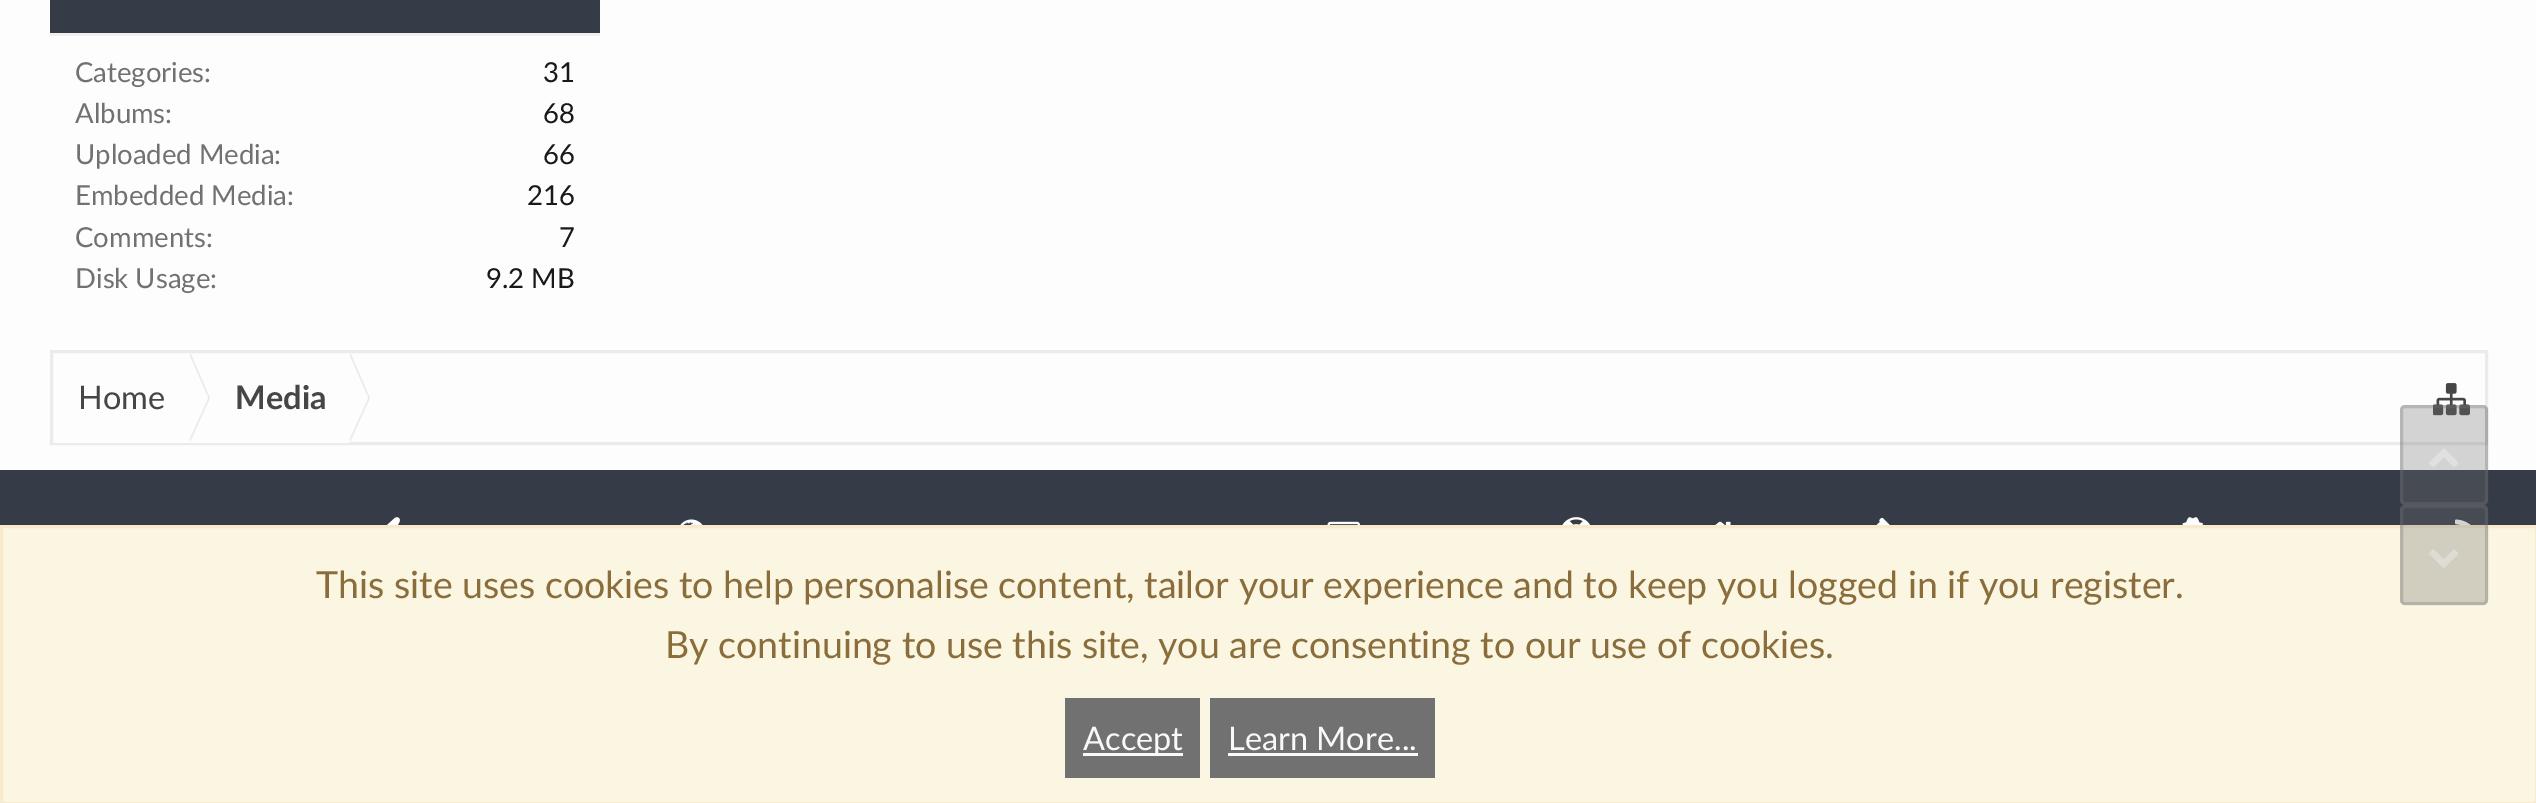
%!PS-Adobe-3.0
%%BoundingBox: 0 0 2536 803
%%LanguageLevel: 3
%%Pages: 1
%%EndComments
%%BeginProlog
/setink { dup -16 bitshift 255 div exch dup -8 bitshift 255 and 255 div exch 255 and 255 div setrgbcolor } def
/usefont { [ exch dup neg 0 0 3 -1 roll 0 0 ] selectfont } def
/setalpha { dup .setfillconstantalpha .setstrokeconstantalpha } def
/rrect { 5 dict begin { /r /h /w /y /x } { exch def } forall
  x r add y moveto x w add y 2 copy h add r arct x w add y h add x 1 index r arct
  x y h add x y r arct x y 2 copy exch w add exch r arct closepath end } def
/drawimage { 5 dict begin { /h /w /y /x /name } { exch def } forall
  gsave x y translate w h scale
  w h 8 [w 0 0 h 0 0] name (r) file false 3 colorimage grestore end } def
%%EndProlog
%%BeginSetup
<< /PageSize [2536 803] /PageUsesTransparency true >> setpagedevice
%%EndSetup
%%Page: 1 1
0 .pushpdf14devicefilter
0 803 translate 1 -1 scale
4 setmiterlimit
16#353C47 setink
0 0 2536 803 rectfill
[
    [0 0 2536 470 16#FDFDFD]
    [50 0 550 33 16#353C47]
    [50 33 550 3 16#EFEFEF]
] { aload pop setink rectfill } forall
/Lato-Regular 27.5 usefont
16#717171 setink
75 82 moveto (Categories:) show
16#191919 setink
543 82 moveto (31) show
16#717171 setink
75 123 moveto (Albums:) show
16#191919 setink
543 123 moveto (68) show
16#717171 setink
75 164 moveto (Uploaded Media:) show
16#191919 setink
543 164 moveto (66) show
16#717171 setink
75 205 moveto (Embedded Media:) show
16#191919 setink
527 205 moveto (216) show
16#717171 setink
75 247 moveto (Comments:) show
16#191919 setink
559 247 moveto (7) show
16#717171 setink
75 288 moveto (Disk Usage:) show
16#191919 setink
486 288 moveto (9.2 MB) show
16#EBEBEB setink
3 setlinewidth
51.5 351.5 2435 92 rectstroke
16#FDFDFD setink
53 442 297 1 rectfill
/Lato-Regular 32.5 usefont
16#464646 setink
78 409 moveto (Home) show
16#EBEBEB setink
190 442 moveto 190 352 lineto 210 398 lineto closepath fill
16#FDFDFD setink
188 442 moveto 188 352 lineto 208 398 lineto closepath fill
/Lato-Bold 32.5 usefont
16#464646 setink
235 409 moveto (Media) show
16#EBEBEB setink
350 442 moveto 350 352 lineto 370 398 lineto closepath fill
16#FDFDFD setink
348 442 moveto 348 352 lineto 368 398 lineto closepath fill
(img1.raw) 2433 383 37 33 drawimage
0.3 setalpha
16#717171 setink
2400 405 88 100 5 rrect fill
2401.5 406.5 85 97 3.5 rrect stroke
1 setalpha
(img2.raw) 2429 448 29 19 drawimage
(img11.raw) 2455 519 16 6 drawimage
16#FAF6E2 setink
1.5 526.5 moveto 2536.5 526.5 lineto 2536.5 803.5 lineto 1.5 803.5 lineto closepath gsave fill grestore
16#F9EACC setink
stroke
0.3 setalpha
16#717171 setink
2400 505 88 100 5 rrect fill
2401.5 506.5 85 97 3.5 rrect stroke
1 setalpha
(img3.raw) 2429 549 30 19 drawimage
(img4.raw) 387 517 13 8 drawimage
(img5.raw) 680 519 23 6 drawimage
(img6.raw) 1327 521 33 4 drawimage
(img7.raw) 1562 517 28 8 drawimage
(img8.raw) 1715 521 16 4 drawimage
(img9.raw) 1876 517 14 8 drawimage
(img10.raw) 2182 517 22 8 drawimage
/Lato-Regular 37.5 usefont
16#8A6D3B setink
316 598 moveto (This site uses cookies to help personalise content, tailor your experience and to keep you logged in if you register.) show
665 658 moveto (By continuing to use this site, you are consenting to our use of cookies.) show
16#717171 setink
1065 698 135 80 rectfill
16#F9F9F9 setink
1083 753 100 3 rectfill
/Lato-Regular 32.5 usefont
1083 750 moveto (Accept) show
16#717171 setink
1210 698 225 80 rectfill
16#F9F9F9 setink
1228 750 moveto (Learn More...) show
1228 753 190 3 rectfill
.poppdf14devicefilter showpage
%%EOF
